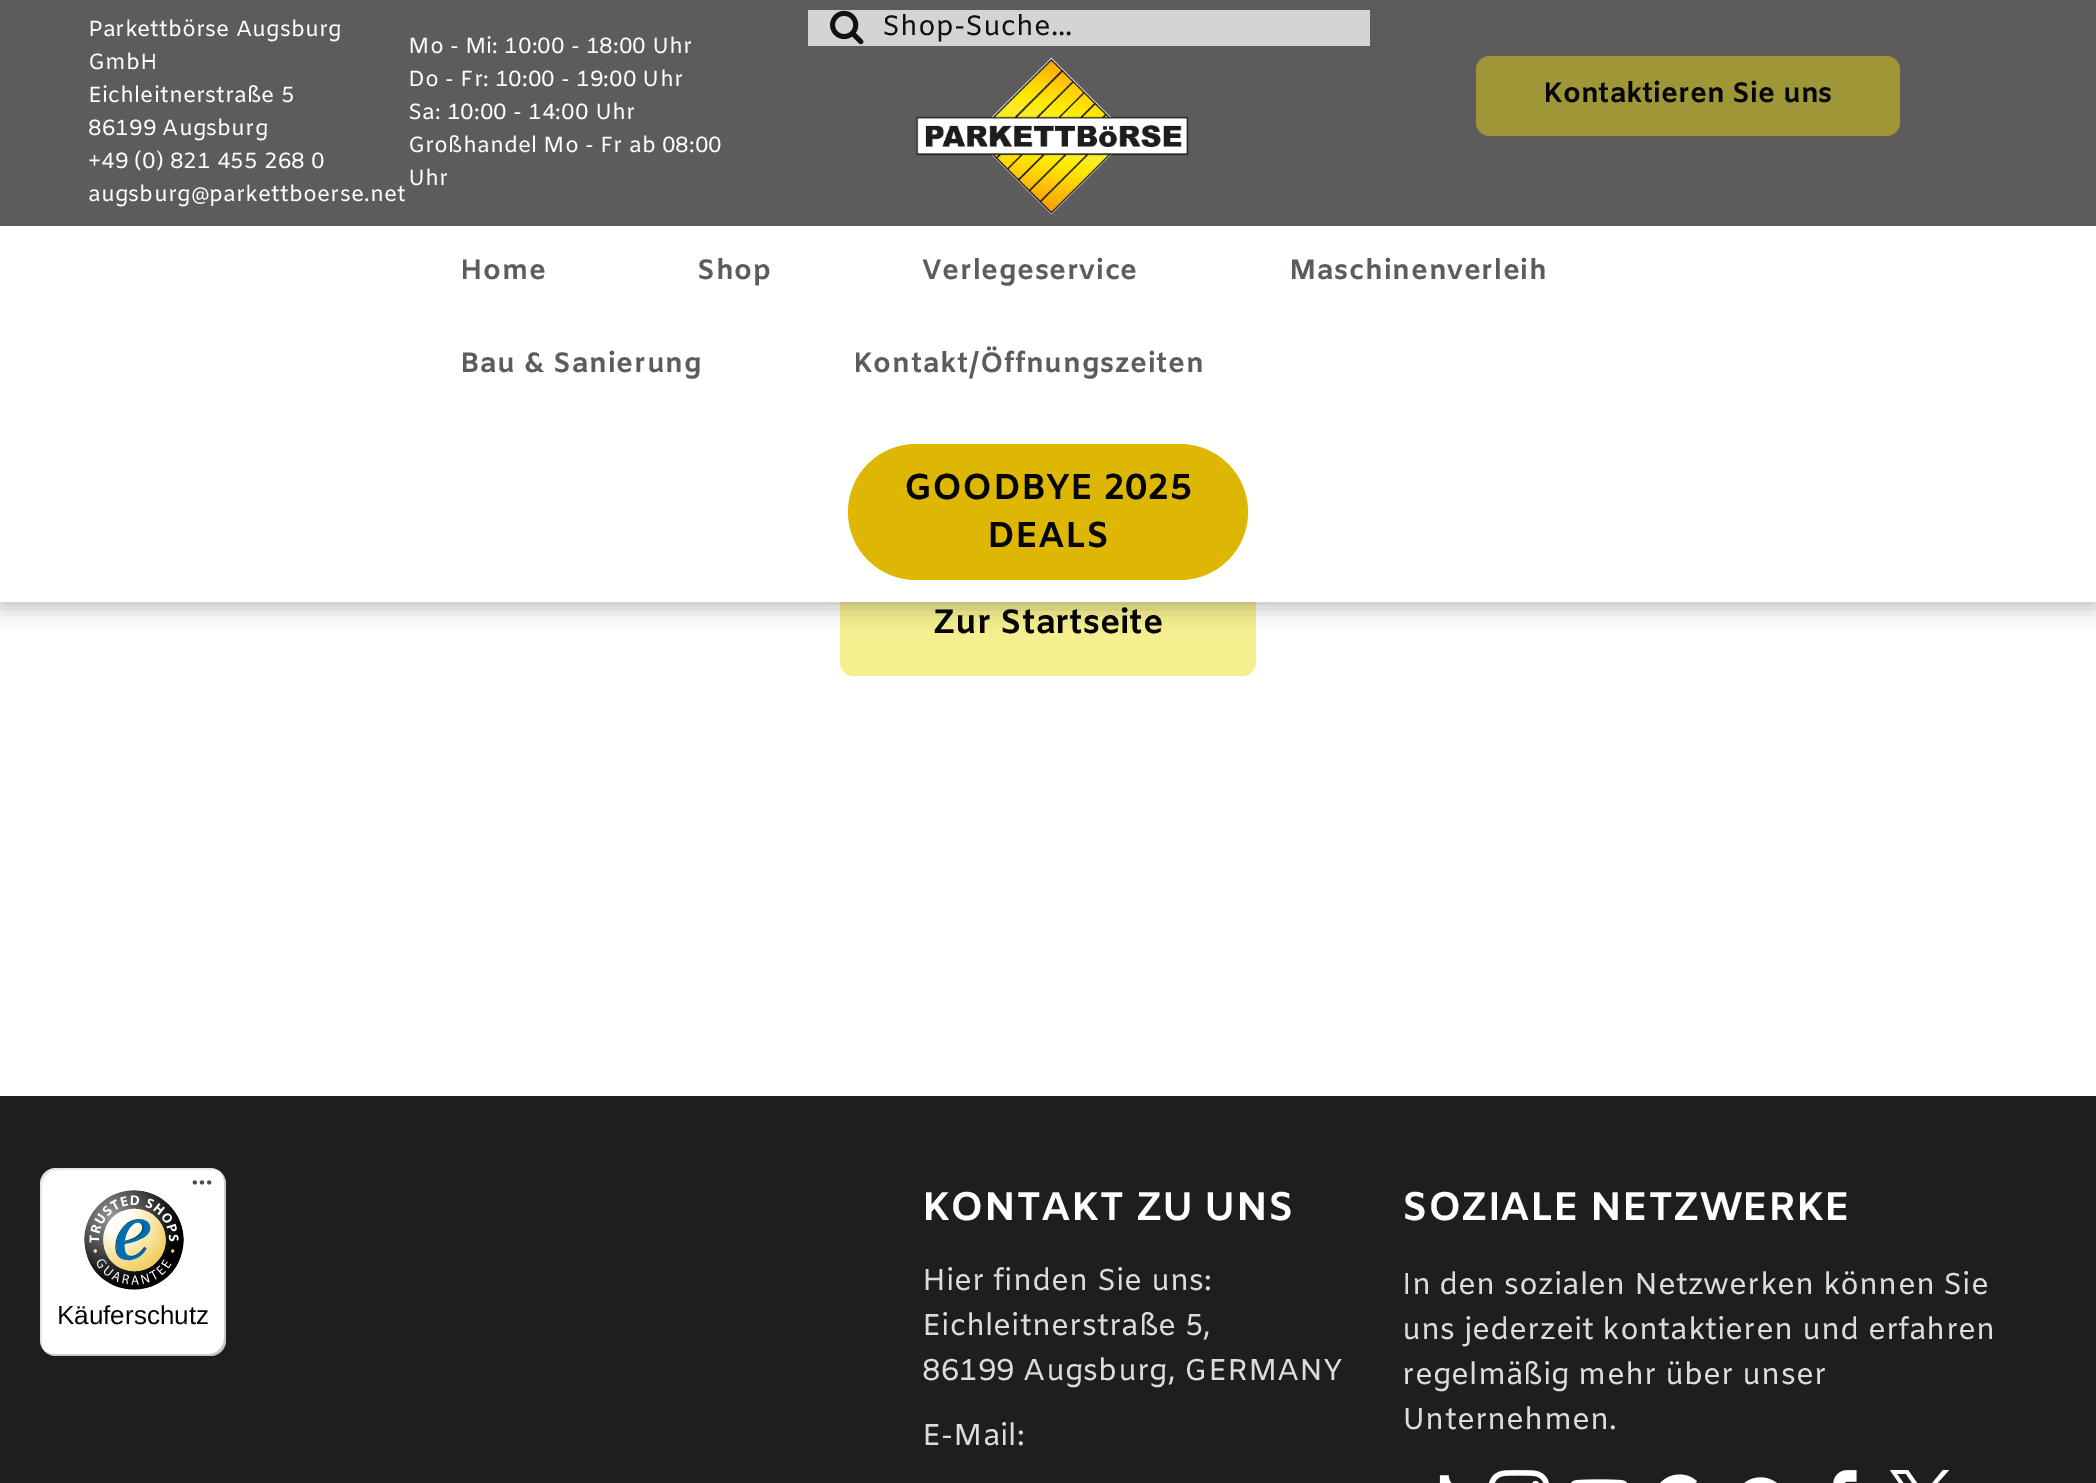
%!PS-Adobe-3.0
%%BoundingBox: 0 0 2096 1483
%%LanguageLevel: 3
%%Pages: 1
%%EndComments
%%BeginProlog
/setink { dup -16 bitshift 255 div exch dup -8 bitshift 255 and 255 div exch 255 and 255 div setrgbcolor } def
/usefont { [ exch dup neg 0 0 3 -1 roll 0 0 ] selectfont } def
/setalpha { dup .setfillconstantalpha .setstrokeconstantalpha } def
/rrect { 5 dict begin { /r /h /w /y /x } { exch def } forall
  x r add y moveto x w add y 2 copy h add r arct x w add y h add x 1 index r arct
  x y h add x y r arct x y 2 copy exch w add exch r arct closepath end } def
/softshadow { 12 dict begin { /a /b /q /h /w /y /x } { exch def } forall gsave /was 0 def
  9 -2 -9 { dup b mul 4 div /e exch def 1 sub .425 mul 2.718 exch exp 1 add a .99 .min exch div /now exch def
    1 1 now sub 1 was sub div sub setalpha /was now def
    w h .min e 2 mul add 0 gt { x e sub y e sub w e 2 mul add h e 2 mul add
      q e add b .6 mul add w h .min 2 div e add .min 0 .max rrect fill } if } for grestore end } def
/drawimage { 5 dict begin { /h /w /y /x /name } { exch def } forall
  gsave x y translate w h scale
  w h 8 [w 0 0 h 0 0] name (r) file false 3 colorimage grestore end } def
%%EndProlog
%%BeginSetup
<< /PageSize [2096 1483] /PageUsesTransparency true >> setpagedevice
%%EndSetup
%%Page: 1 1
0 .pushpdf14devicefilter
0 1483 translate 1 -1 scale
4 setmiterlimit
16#FFFFFF setink
0 0 2096 1483 rectfill
16#F5EF90 setink
840 572 416 104 14 rrect fill
16#000000 setink
0 6 2096 602 0 11 0.25 softshadow
16#5D5B5B setink
0 0 2096 226 rectfill
/Amiko-Regular 22 usefont
16#FFFFFF setink
[
    [(Parkettbörse Augsburg) 88 36]
    [(GmbH) 88 69]
    [(Eichleitnerstraße 5) 88 102]
    [(86199 Augsburg) 88 135]
    [(+49 \(0\) 821 455 268 0) 88 168]
    [(augsburg@parkettboerse.net) 88 201]
    [(Mo - Mi: 10:00 - 18:00 Uhr) 408 53]
    [(Do - Fr: 10:00 - 19:00 Uhr) 408 86]
    [(Sa: 10:00 - 14:00 Uhr) 408 119]
    [(Großhandel Mo - Fr ab 08:00) 408 152]
    [(Uhr) 408 185]
] { aload pop moveto show } forall
16#D5D4D4 setink
808 10 562 36 rectfill
(img1.raw) 830 10 34 35 drawimage
/Amiko-Regular 28 usefont
16#111111 setink
882 35 moveto (Shop-Suche...) show
(img2.raw) 916 57 273 157 drawimage
16#9E9637 setink
1476 56 424 80 14 rrect fill
/Amiko-Bold 28 usefont
16#050505 setink
1543 102 moveto (Kontaktieren Sie uns) show
16#FFFFFF setink
0 226 2096 376 rectfill
16#5A5D5E setink
460 279 moveto 0.8 0 (Home) ashow
697 279 moveto 0.8 0 (Shop) ashow
922 279 moveto 0.8 0 (Verlegeservice) ashow
1289 279 moveto 0.8 0 (Maschinenverleih) ashow
460 372 moveto 0.8 0 (Bau & Sanierung) ashow
853 372 moveto 0.8 0 (Kontakt/Öffnungszeiten) ashow
16#DEB705 setink
848 444 400 136 68 rrect fill
/Amiko-Bold 36 usefont
16#050505 setink
904 499 moveto (GOODBYE 2025) show
987 547 moveto (DEALS) show
/Amiko-Bold 33.75 usefont
933 633 moveto (Zur Startseite) show
16#1F1E1E setink
0 1096 2096 387 rectfill
/Amiko-Bold 40 usefont
16#FFFFFF setink
922 1220 moveto (KONTAKT ZU UNS) show
/Amiko-Regular 30 usefont
16#DCDCDC setink
[
    [(Hier finden Sie uns:) 922 1290]
    [(Eichleitnerstraße 5,) 922 1335]
    [(86199 Augsburg, GERMANY) 922 1380]
    [(E-Mail:) 922 1445]
] { aload pop moveto show } forall
/Amiko-Bold 40 usefont
16#FFFFFF setink
1402 1220 moveto (SOZIALE NETZWERKE) show
/Amiko-Regular 30 usefont
16#DCDCDC setink
[
    [(In den sozialen Netzwerken können Sie) 1402 1294]
    [(uns jederzeit kontaktieren und erfahren) 1402 1339]
    [(regelmäßig mehr über unser) 1402 1384]
    [(Unternehmen.) 1402 1429]
] { aload pop moveto show } forall
(img3.raw) 1439 1475 13 8 drawimage
(img4.raw) 1489 1470 60 13 drawimage
(img5.raw) 1570 1479 58 4 drawimage
(img6.raw) 1660 1474 38 9 drawimage
(img7.raw) 1744 1477 33 6 drawimage
(img8.raw) 1833 1470 24 13 drawimage
16#FFFFFF setink
1926 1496 moveto 1949 1470 lineto 1943 1470 lineto 1924 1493 lineto 1908 1470 lineto 1890 1470 lineto 1914 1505 lineto 1890 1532 lineto 1895 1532 lineto 1916 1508 lineto 1933 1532 lineto 1951 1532 lineto closepath 1919 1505 moveto 1897 1474 lineto 1906 1474 lineto 1943 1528 lineto 1935 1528 lineto closepath fill
40 1168 186 188 16 rrect fill
0.1 setalpha
16#000000 setink
58 1170 moveto 212 1170 lineto 216 1170 219 1171 222 1173 curveto 219 1170 215 1168 210 1168 curveto 56 1168 lineto 47 1168 40 1175 40 1184 curveto 40 1340 lineto 40 1345 42 1349 45 1352 curveto 43 1349 42 1346 42 1342 curveto 42 1186 lineto 42 1177 49 1170 58 1170 curveto closepath fill
0.2 setalpha
44 1351 moveto 47 1354 51 1356 56 1356 curveto 210 1356 lineto 219 1356 226 1349 226 1340 curveto 226 1184 lineto 226 1179 224 1175 221 1172 curveto 223 1175 224 1178 224 1182 curveto 224 1338 lineto 224 1347 217 1354 208 1354 curveto 54 1354 lineto 50 1354 47 1353 44 1351 curveto closepath fill
16#323232 setink
45 1351 moveto 48 1354 52 1356 56 1356 curveto 210 1356 lineto 219 1356 226 1349 226 1340 curveto 226 1184 lineto 226 1180 224 1176 221 1173 curveto 224 1176 225 1179 225 1183 curveto 225 1339 lineto 225 1348 218 1355 209 1355 curveto 55 1355 lineto 51 1355 48 1354 45 1351 curveto closepath fill
0.3 setalpha
16#FFFFFF setink
45 1351 moveto 48 1354 52 1356 56 1356 curveto 210 1356 lineto 219 1356 226 1349 226 1340 curveto 226 1184 lineto 226 1180 224 1176 221 1173 curveto 224 1176 225 1179 225 1183 curveto 225 1339 lineto 225 1348 218 1355 209 1355 curveto 55 1355 lineto 51 1355 48 1354 45 1351 curveto closepath fill
1 setalpha
(img9.raw) 192 1180 20 5 drawimage
(img10.raw) 84 1190 100 100 drawimage
/LiberationSans-Regular 26 usefont
16#050505 setink
57 1324 moveto (Käuferschutz) show
.poppdf14devicefilter showpage
%%EOF
